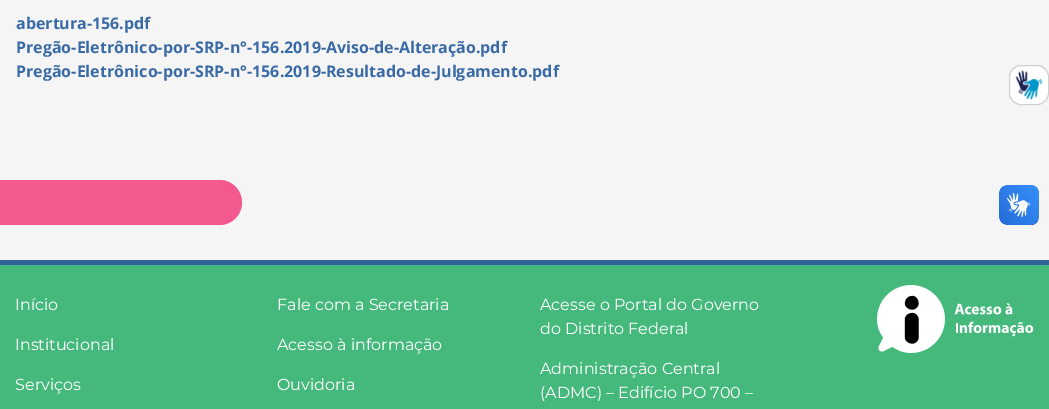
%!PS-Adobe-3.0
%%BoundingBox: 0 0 1049 409
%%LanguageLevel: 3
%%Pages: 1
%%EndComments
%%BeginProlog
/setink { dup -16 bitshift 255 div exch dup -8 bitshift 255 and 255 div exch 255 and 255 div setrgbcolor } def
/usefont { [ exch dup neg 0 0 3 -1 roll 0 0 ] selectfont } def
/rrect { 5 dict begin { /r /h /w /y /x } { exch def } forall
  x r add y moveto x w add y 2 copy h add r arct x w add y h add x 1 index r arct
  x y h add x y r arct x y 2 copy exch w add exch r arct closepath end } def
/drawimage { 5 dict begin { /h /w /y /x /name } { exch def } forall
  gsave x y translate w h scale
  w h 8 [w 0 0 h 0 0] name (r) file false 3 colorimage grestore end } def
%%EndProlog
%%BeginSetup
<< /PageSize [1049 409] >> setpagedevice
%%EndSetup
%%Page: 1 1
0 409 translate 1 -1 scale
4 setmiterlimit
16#F5F5F5 setink
0 0 1049 409 rectfill
/OpenSans-Bold 16 usefont
16#396AA5 setink
[
    [(abertura-156.pdf) 16 29]
    [(Pregão-Eletrônico-por-SRP-n°-156.2019-Aviso-de-Alteração.pdf) 16 53]
    [(Pregão-Eletrônico-por-SRP-n°-156.2019-Resultado-de-Julgamento.pdf) 16 77]
] { aload pop moveto show } forall
16#45B97C setink
0 265 1049 144 rectfill
16#346399 setink
0 260 1049 5 rectfill
/Montserrat-Thin 16 usefont
16#FFFFFF setink
[
    [(Início) 15 310]
    [(Institucional) 15 350]
    [(Serviços) 15 390]
    [(Fale com a Secretaria) 277 310]
    [(Acesso à informação) 277 350]
    [(Ouvidoria) 277 390]
    [(Acesse o Portal do Governo) 540 310]
    [(do Distrito Federal) 540 334]
    [(Administração Central) 540 374]
    [(\(ADMC\) – Edifício PO 700 –) 540 398]
] { aload pop moveto show } forall
(img1.raw) 877 285 157 68 drawimage
1009.5 65.5 39 39 11.5 rrect gsave fill grestore
16#D0D0D0 setink
stroke
(img2.raw) 1015 70 28 30 drawimage
16#F3588E setink
-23 180 moveto 219.5 180 lineto 232 180 242 190 242 202.5 curveto 242 215 232 225 219.5 225 curveto -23 225 lineto closepath fill
(img3.raw) 999 185 40 40 drawimage
(img4.raw) 999 185 40 40 drawimage
showpage
%%EOF
